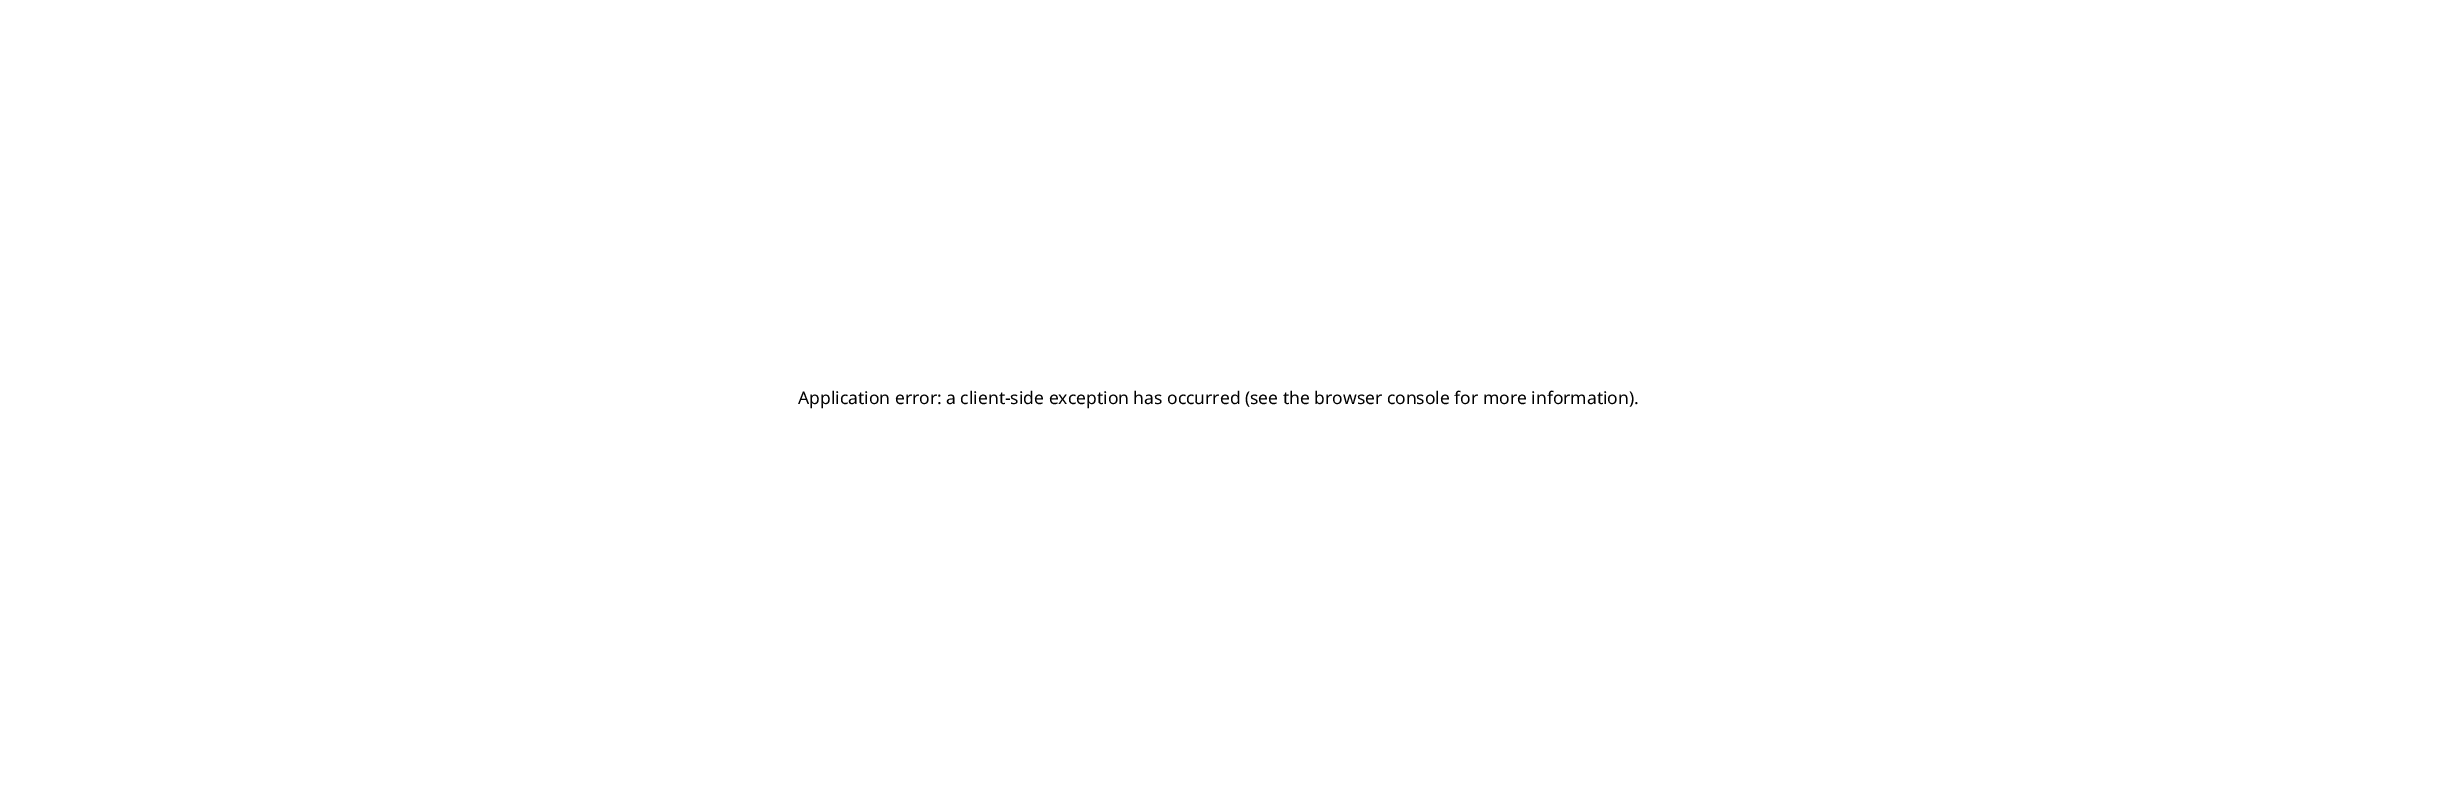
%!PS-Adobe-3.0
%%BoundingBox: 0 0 2437 794
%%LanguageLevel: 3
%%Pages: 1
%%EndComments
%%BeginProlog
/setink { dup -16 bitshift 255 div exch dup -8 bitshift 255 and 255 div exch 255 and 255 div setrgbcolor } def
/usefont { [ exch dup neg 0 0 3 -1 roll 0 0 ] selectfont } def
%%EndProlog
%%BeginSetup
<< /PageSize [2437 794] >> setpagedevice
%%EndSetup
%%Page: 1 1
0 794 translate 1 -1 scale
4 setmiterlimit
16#FFFFFF setink
0 0 2437 794 rectfill
/NotoSans-Regular 17.5 usefont
16#000000 setink
798 404 moveto (Application error: a client-side exception has occurred \(see the browser console for more information\).) show
showpage
%%EOF
